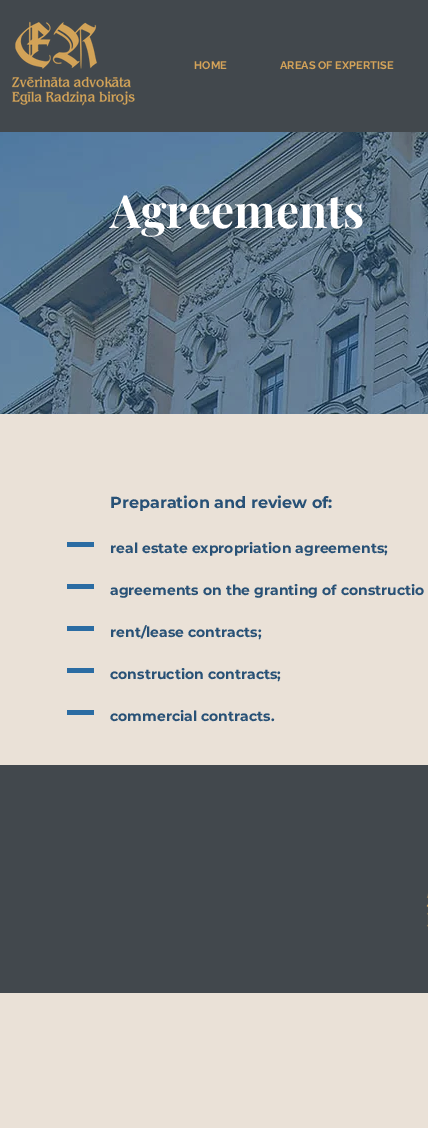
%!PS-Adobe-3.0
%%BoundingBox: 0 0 428 1128
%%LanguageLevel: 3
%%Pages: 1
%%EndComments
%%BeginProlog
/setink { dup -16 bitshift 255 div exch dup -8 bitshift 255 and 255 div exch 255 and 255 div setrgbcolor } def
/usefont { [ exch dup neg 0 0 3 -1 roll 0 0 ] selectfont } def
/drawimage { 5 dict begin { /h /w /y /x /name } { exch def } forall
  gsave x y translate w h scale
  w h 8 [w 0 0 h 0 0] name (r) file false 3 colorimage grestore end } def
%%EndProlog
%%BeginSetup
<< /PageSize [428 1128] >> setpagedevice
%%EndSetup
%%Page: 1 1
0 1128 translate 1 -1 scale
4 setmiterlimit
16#EAE1D7 setink
0 0 428 1128 rectfill
16#42484D setink
0 0 428 132 rectfill
(img1.raw) 11 21 124 85 drawimage
/Raleway-Bold 11 usefont
16#D4A359 setink
194 69 moveto (HOME) show
280 69 moveto (AREAS OF EXPERTISE) show
(img2.raw) 0 132 428 282 drawimage
/PlayfairDisplay-Bold 46 usefont
16#FFFFFF setink
110 228 moveto (Agreements) show
16#2B6CA3 setink
67 542 27 5 rectfill
/Montserrat-Bold 16 usefont
16#285176 setink
110 508 moveto (Preparation and review of:) show
/Montserrat-Bold 14 usefont
[
    [(real estate expropriation agreements;) 110 553]
    [(agreements on the granting of constructio) 110 595]
    [(rent/lease contracts;) 110 637]
    [(construction contracts;) 110 679]
    [(commercial contracts.) 110 721]
] { aload pop moveto show } forall
[
    [67 584 27 5 16#2B6CA3]
    [67 626 27 5 16#2B6CA3]
    [67 668 27 5 16#2B6CA3]
    [67 710 27 5 16#2B6CA3]
    [0 765 428 228 16#42484D]
] { aload pop setink rectfill } forall
(img3.raw) 426 893 2 34 drawimage
showpage
%%EOF
